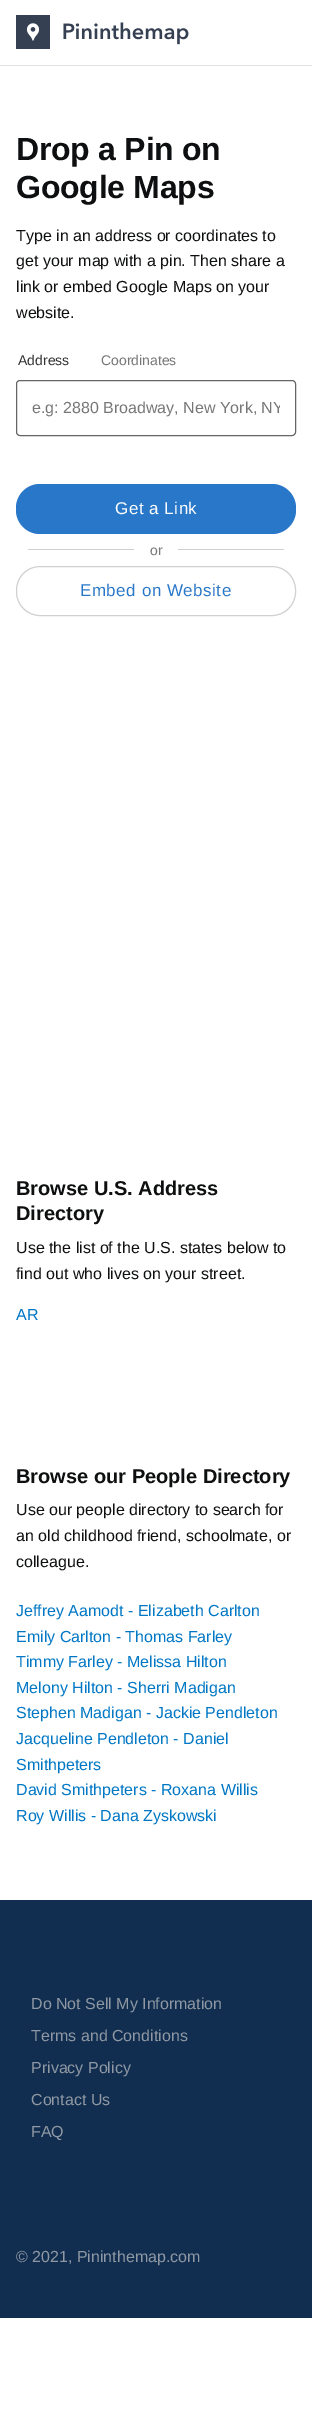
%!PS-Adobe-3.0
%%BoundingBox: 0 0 312 2425
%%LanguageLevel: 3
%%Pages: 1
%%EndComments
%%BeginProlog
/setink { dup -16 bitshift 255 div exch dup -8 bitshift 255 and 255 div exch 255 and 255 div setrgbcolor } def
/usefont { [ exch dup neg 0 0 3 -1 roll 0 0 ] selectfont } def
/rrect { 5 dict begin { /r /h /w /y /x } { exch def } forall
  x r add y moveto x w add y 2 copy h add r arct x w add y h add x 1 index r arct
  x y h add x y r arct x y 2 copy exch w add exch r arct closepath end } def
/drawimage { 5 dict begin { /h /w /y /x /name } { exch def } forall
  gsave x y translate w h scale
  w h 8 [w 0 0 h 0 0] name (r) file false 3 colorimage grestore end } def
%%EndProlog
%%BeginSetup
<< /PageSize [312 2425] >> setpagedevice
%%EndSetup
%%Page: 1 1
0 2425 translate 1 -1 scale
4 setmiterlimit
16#FFFFFF setink
0 0 312 2425 rectfill
16#DEE1E1 setink
0 65 312 1 rectfill
(img1.raw) 16 15 173 34 drawimage
/LiberationSans-Bold 32 usefont
16#0E0F10 setink
16 160 moveto -0.25 0 (Drop a Pin on) ashow
16 198 moveto -0.25 0 (Google Maps) ashow
/LiberationSans-Regular 16 usefont
[
    [(Type in an address or coordinates to) 16 241]
    [(get your map with a pin. Then share a) 16 266]
    [(link or embed Google Maps on your) 16 292]
    [(website.) 16 318]
] { aload pop moveto show } forall
/LiberationSans-Regular 14 usefont
16#333333 setink
18 365 moveto (Address) show
16#777777 setink
101 365 moveto (Coordinates) show
16#666666 setink
16.5 380.5 279 55 3.5 rrect stroke
gsave
32 399 248 18 rectclip
/LiberationSans-Regular 16 usefont
16#777777 setink
32 413 moveto (e.g: 2880 Broadway, New York, NY) show
grestore
16#2977C9 setink
16 484 280 50 24 rrect fill
/LiberationSans-Regular 17 usefont
16#FFFFFF setink
115 514 moveto 0.5 0 (Get a Link) ashow
16#D1D1D1 setink
28 549 106 1 rectfill
/LiberationSans-Regular 14 usefont
16#777777 setink
150 555 moveto (or) show
16#D1D1D1 setink
178 549 106 1 rectfill
16.5 566.5 279 49 23.5 rrect stroke
/LiberationSans-Regular 17 usefont
16#2977C9 setink
80 596 moveto 0.5 0 (Embed on Website) ashow
/LiberationSans-Bold 20 usefont
16#0E0F10 setink
16 1195 moveto (Browse U.S. Address) show
16 1220 moveto (Directory) show
/LiberationSans-Regular 16 usefont
16 1253 moveto (Use the list of the U.S. states below to) show
16 1279 moveto (find out who lives on your street.) show
16#0077C5 setink
16 1320 moveto (AR) show
/LiberationSans-Bold 20 usefont
16#0E0F10 setink
16 1483 moveto (Browse our People Directory) show
/LiberationSans-Regular 16 usefont
[
    [(Use our people directory to search for) 16 1515]
    [(an old childhood friend, schoolmate, or) 16 1541]
    [(colleague.) 16 1567]
] { aload pop moveto show } forall
16#0077C5 setink
[
    [(Jeffrey Aamodt - Elizabeth Carlton) 16 1616]
    [(Emily Carlton - Thomas Farley) 16 1642]
    [(Timmy Farley - Melissa Hilton) 16 1667]
    [(Melony Hilton - Sherri Madigan) 16 1693]
    [(Stephen Madigan - Jackie Pendleton) 16 1718]
    [(Jacqueline Pendleton - Daniel) 16 1744]
    [(Smithpeters) 16 1770]
    [(David Smithpeters - Roxana Willis) 16 1795]
    [(Roy Willis - Dana Zyskowski) 16 1821]
] { aload pop moveto show } forall
16#112E50 setink
0 1900 312 418 rectfill
16#8F98A3 setink
[
    [(Do Not Sell My Information) 31 2009]
    [(Terms and Conditions) 31 2041]
    [(Privacy Policy) 31 2073]
    [(Contact Us) 31 2105]
    [(FAQ) 31 2137]
    [(© 2021, Pininthemap.com) 16 2262]
] { aload pop moveto show } forall
showpage
%%EOF
